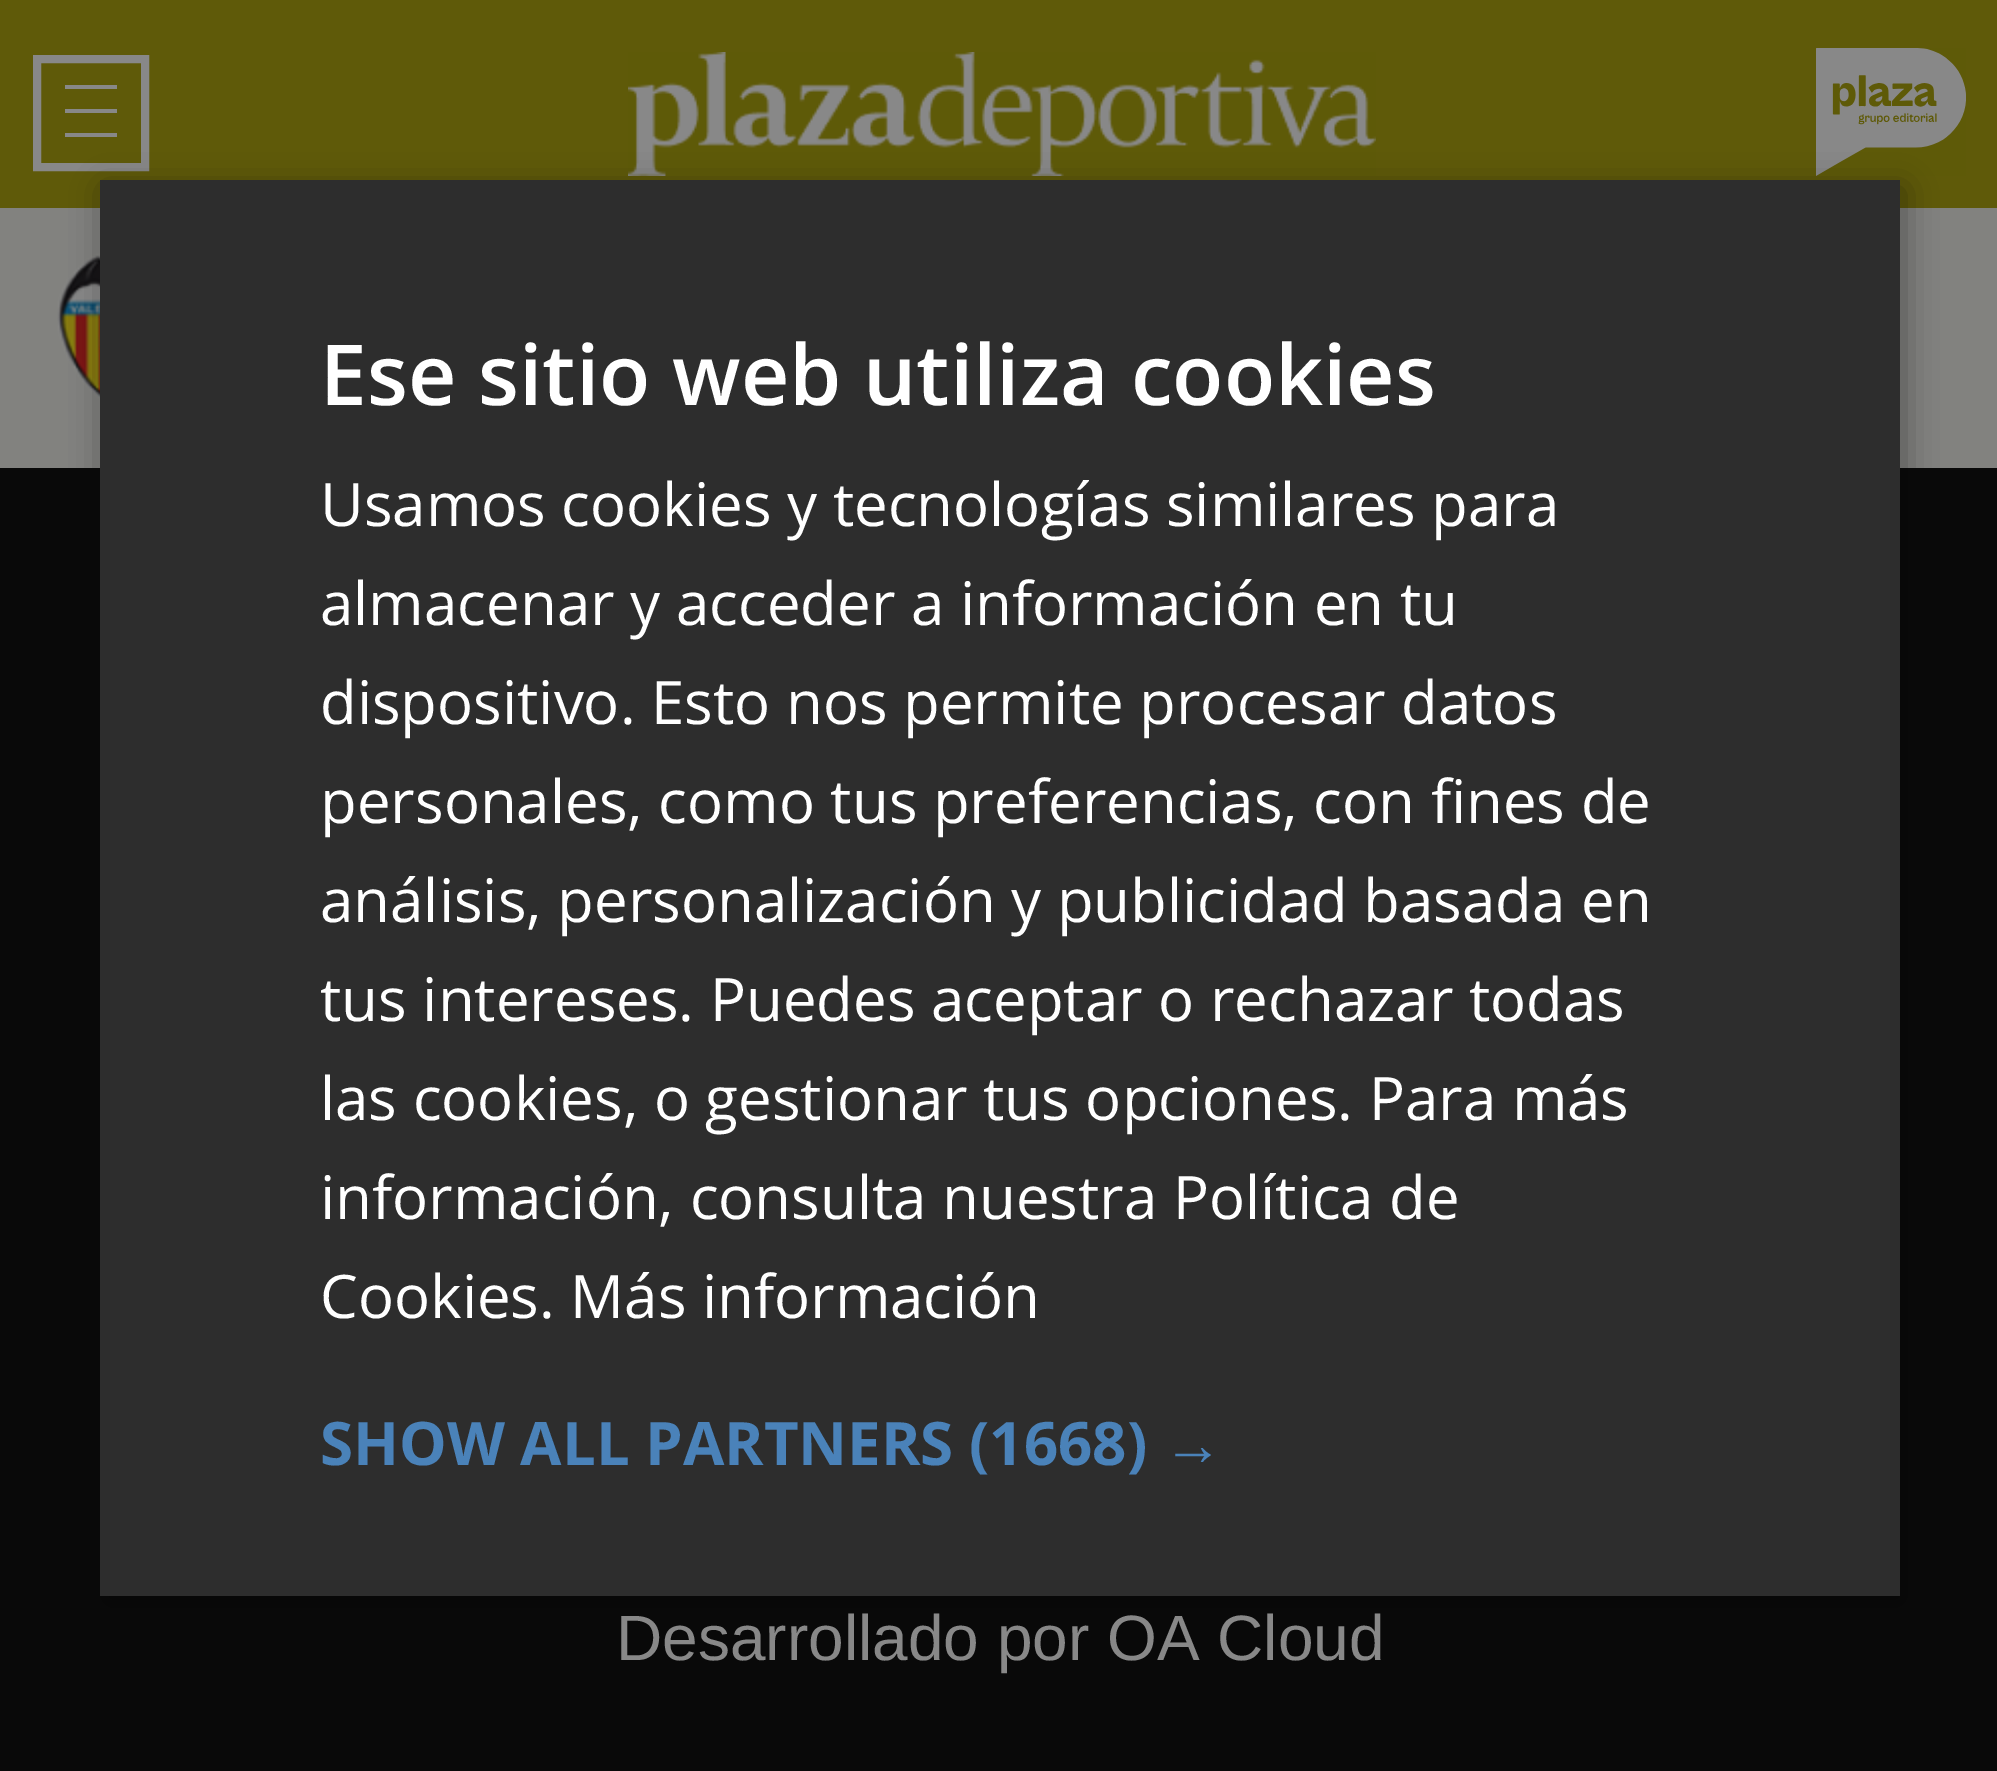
%!PS-Adobe-3.0
%%BoundingBox: 0 0 1997 1771
%%LanguageLevel: 3
%%Pages: 1
%%EndComments
%%BeginProlog
/setink { dup -16 bitshift 255 div exch dup -8 bitshift 255 and 255 div exch 255 and 255 div setrgbcolor } def
/usefont { [ exch dup neg 0 0 3 -1 roll 0 0 ] selectfont } def
/setalpha { dup .setfillconstantalpha .setstrokeconstantalpha } def
/rrect { 5 dict begin { /r /h /w /y /x } { exch def } forall
  x r add y moveto x w add y 2 copy h add r arct x w add y h add x 1 index r arct
  x y h add x y r arct x y 2 copy exch w add exch r arct closepath end } def
/softshadow { 12 dict begin { /a /b /q /h /w /y /x } { exch def } forall gsave /was 0 def
  9 -2 -9 { dup b mul 4 div /e exch def 1 sub .425 mul 2.718 exch exp 1 add a .99 .min exch div /now exch def
    1 1 now sub 1 was sub div sub setalpha /was now def
    w h .min e 2 mul add 0 gt { x e sub y e sub w e 2 mul add h e 2 mul add
      q e add b .6 mul add w h .min 2 div e add .min 0 .max rrect fill } if } for grestore end } def
/drawimage { 5 dict begin { /h /w /y /x /name } { exch def } forall
  gsave x y translate w h scale
  w h 8 [w 0 0 h 0 0] name (r) file false 3 colorimage grestore end } def
%%EndProlog
%%BeginSetup
<< /PageSize [1997 1771] /PageUsesTransparency true >> setpagedevice
%%EndSetup
%%Page: 1 1
0 .pushpdf14devicefilter
0 1771 translate 1 -1 scale
4 setmiterlimit
16#090909 setink
0 0 1997 1771 rectfill
16#5F5A09 setink
0 0 1997 208 rectfill
16#888888 setink
8 setlinewidth
37 59 108 108 rectstroke
[
    [65 85 52 4 16#888888]
    [65 109 52 4 16#888888]
    [65 133 52 4 16#888888]
] { aload pop setink rectfill } forall
(img1.raw) 628 52 748 124 drawimage
(img2.raw) 1816 48 150 128 drawimage
16#82827F setink
0 208 1997 260 rectfill
(img3.raw) 57 253 43 148 drawimage
16#000000 setink
104 188 1800 1416 0 16 0.35 softshadow
16#2D2D2D setink
100 180 1800 1416 rectfill
/OpenSans-SemiBold 84 usefont
16#FFFFFF setink
320 405 moveto (Ese sitio web utiliza cookies) show
/OpenSans-Regular 60 usefont
[
    [(Usamos cookies y tecnologías similares para) 320 526]
    [(almacenar y acceder a información en tu) 320 625]
    [(dispositivo. Esto nos permite procesar datos) 320 724]
    [(personales, como tus preferencias, con fines de) 320 823]
    [(análisis, personalización y publicidad basada en) 320 922]
    [(tus intereses. Puedes aceptar o rechazar todas) 320 1021]
    [(las cookies, o gestionar tus opciones. Para más) 320 1120]
    [(información, consulta nuestra Política de) 320 1219]
    [(Cookies. Más información) 320 1318]
] { aload pop moveto show } forall
/OpenSans-Bold 60 usefont
16#4A82B9 setink
320 1465 moveto (SHOW ALL PARTNERS \(1668\)) show
/LiberationSans-Bold 60 usefont
1163 1465 moveto (→) show
/LiberationSans-Regular 64 usefont
16#888888 setink
616 1660 moveto (Desarrollado por OA Cloud) show
.poppdf14devicefilter showpage
%%EOF
